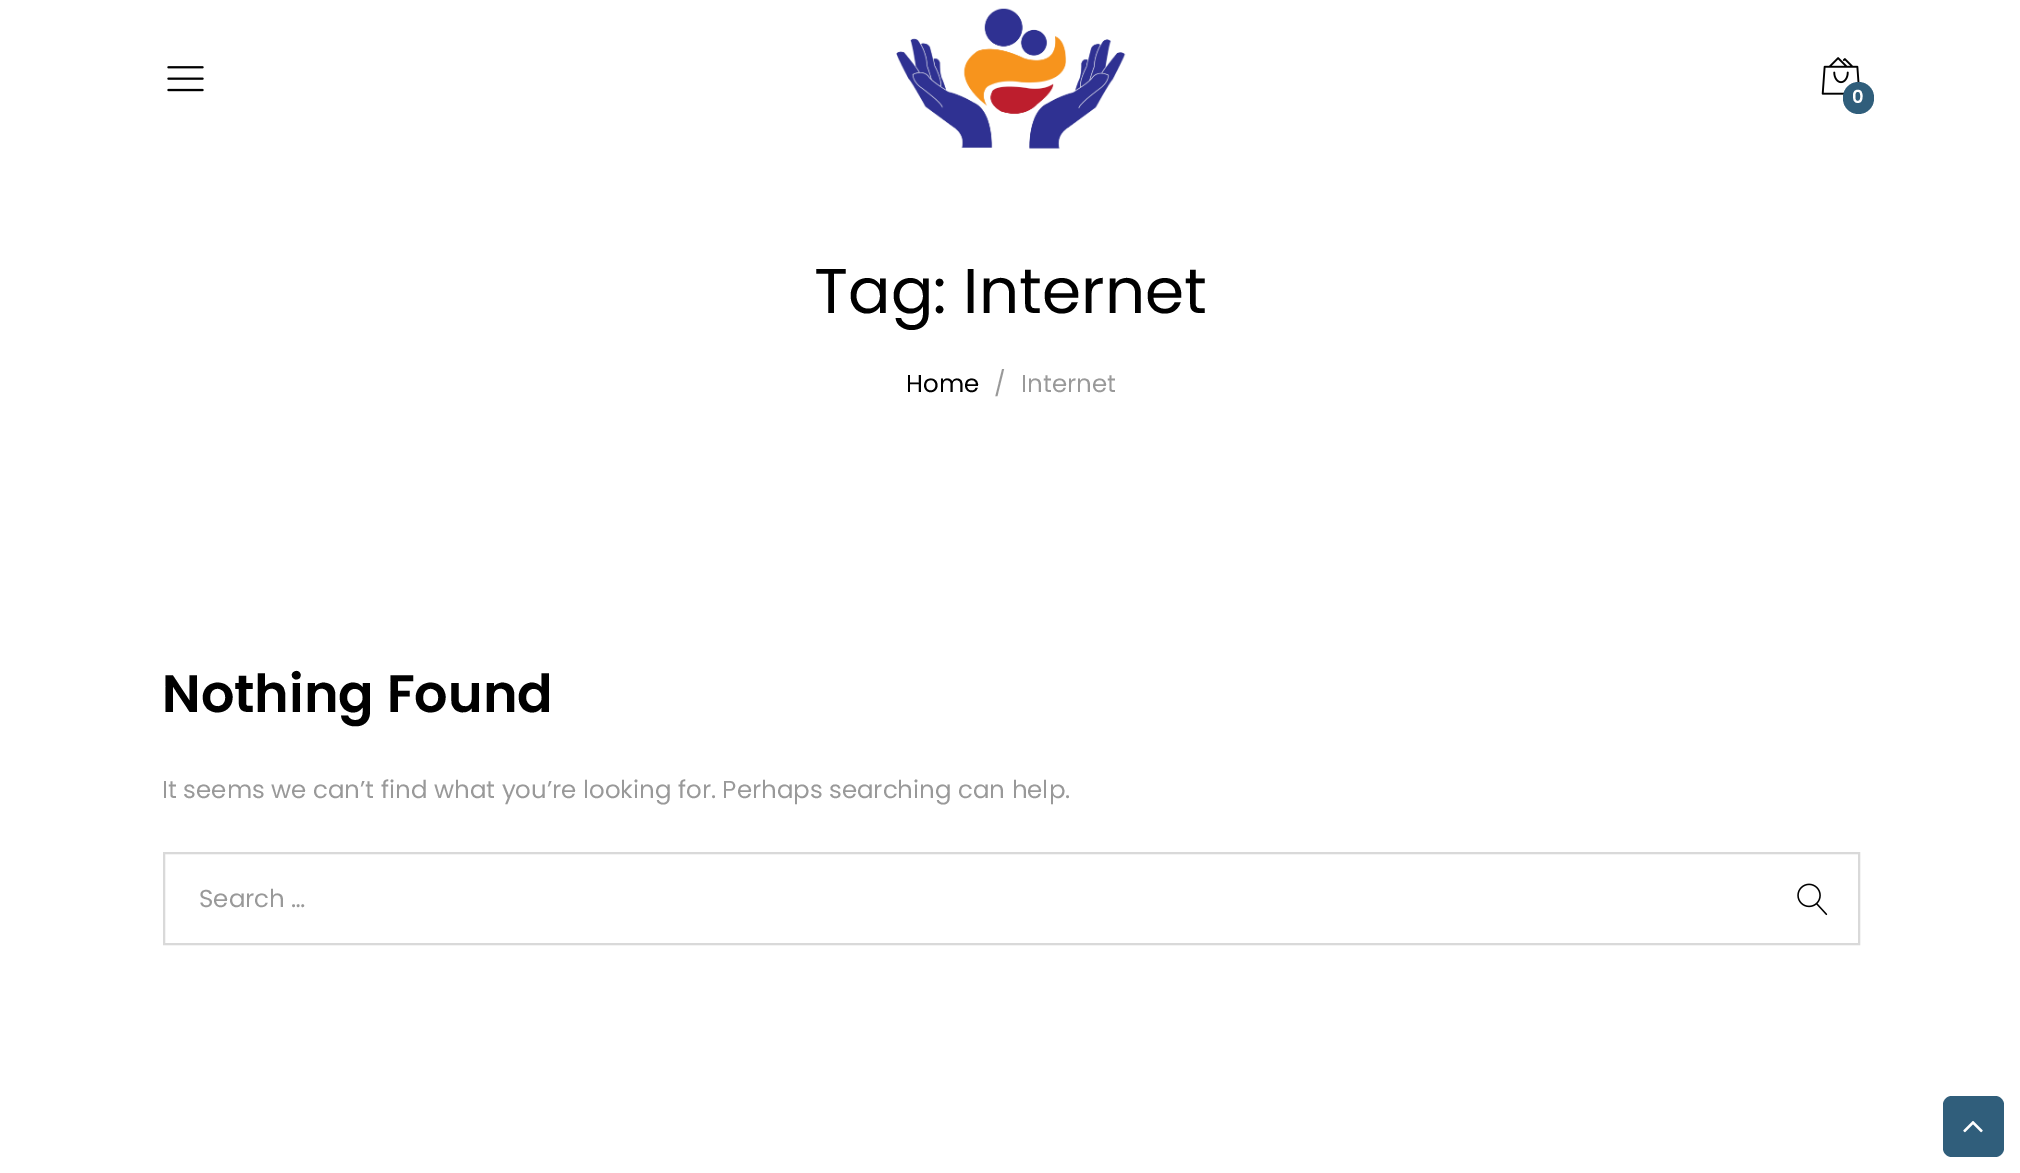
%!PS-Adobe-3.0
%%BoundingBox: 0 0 2020 1173
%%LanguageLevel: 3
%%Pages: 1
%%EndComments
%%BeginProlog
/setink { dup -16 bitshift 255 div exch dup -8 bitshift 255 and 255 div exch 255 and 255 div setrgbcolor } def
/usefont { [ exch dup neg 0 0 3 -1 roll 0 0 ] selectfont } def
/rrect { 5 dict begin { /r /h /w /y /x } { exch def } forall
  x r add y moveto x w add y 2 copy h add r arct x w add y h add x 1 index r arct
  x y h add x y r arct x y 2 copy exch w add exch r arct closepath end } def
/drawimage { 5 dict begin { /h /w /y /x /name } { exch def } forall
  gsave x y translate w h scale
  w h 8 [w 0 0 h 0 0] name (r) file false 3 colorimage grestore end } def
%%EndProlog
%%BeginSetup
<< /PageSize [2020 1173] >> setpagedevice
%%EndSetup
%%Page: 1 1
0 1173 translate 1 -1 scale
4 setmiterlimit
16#FFFFFF setink
0 0 2020 1173 rectfill
(img1.raw) 167 66 37 26 drawimage
(img2.raw) 896 8 230 141 drawimage
(img3.raw) 1821 57 39 38 drawimage
16#305E7B setink
1843 82 31 32 15.5 rrect fill
/Poppins-SemiBold 18 usefont
16#FFFFFF setink
1852 103 moveto (0) show
/Poppins-Regular 63 usefont
16#000000 setink
814 313 moveto (Tag: Internet) show
/Poppins-Regular 24.5 usefont
906 392 moveto (Home) show
16#999999 setink
994 392 moveto (/) show
1021 392 moveto (Internet) show
/Poppins-SemiBold 52.5 usefont
16#000000 setink
162 712 moveto (Nothing Found) show
/Poppins-Regular 24.5 usefont
16#999999 setink
162 798 moveto (It seems we can’t find what you’re looking for. Perhaps searching can help.) show
16#D9D9D9 setink
2 setlinewidth
164 853 1695 91 rectstroke
16#999999 setink
199 907 moveto (Search …) show
(img4.raw) 1797 883 31 33 drawimage
16#305E7B setink
1943 1096 61 61 9 rrect fill
(img5.raw) 1963 1121 20 12 drawimage
showpage
%%EOF
